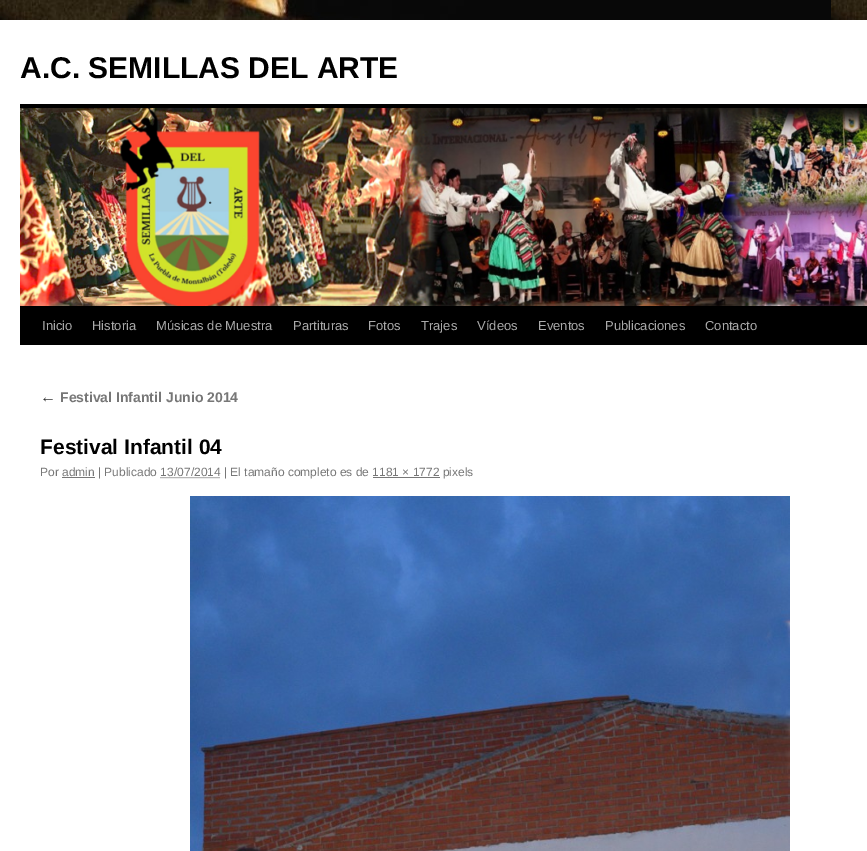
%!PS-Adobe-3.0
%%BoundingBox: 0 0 867 851
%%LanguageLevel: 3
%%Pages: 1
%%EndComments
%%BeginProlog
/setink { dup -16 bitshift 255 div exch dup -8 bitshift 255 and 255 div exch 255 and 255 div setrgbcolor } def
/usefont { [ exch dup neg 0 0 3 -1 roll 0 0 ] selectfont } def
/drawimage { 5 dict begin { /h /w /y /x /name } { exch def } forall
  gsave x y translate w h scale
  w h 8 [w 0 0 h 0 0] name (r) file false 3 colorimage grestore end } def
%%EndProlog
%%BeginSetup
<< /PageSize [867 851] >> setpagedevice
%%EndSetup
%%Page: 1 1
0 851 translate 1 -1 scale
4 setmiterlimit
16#FFFFFF setink
0 0 867 851 rectfill
(img1.raw) 0 0 867 20 drawimage
/LiberationSans-Bold 30 usefont
16#000000 setink
20 78 moveto (A.C. SEMILLAS DEL ARTE) show
20 104 847 4 rectfill
20 306 847 39 rectfill
(img2.raw) 20 108 847 198 drawimage
/LiberationSans-Regular 13 usefont
16#AAAAAA setink
[
    [(Inicio) 42 330]
    [(Historia) 92 330]
    [(Músicas de Muestra) 156 330]
    [(Partituras) 293 330]
    [(Fotos) 368 330]
    [(Trajes) 421 330]
    [(Vídeos) 477 330]
    [(Eventos) 538 330]
    [(Publicaciones) 605 330]
    [(Contacto) 705 330]
] { aload pop moveto show } forall
/LiberationSerif-Italic 16 usefont
16#333333 setink
40 402 moveto (←) show
/LiberationSans-Bold 14 usefont
16#777777 setink
60 402 moveto (Festival Infantil Junio 2014) show
/LiberationSans-Bold 21 usefont
16#000000 setink
40 454 moveto (Festival Infantil 04) show
/LiberationSans-Regular 12 usefont
16#777777 setink
40 476 moveto (Por admin | Publicado 13/07/2014 | El tamaño completo es de 1181 × 1772 pixels) show
62 477 33 1 rectfill
[1 1] 0 setdash
160.5 477.5 moveto 220.5 477.5 lineto stroke
373 477 67 1 rectfill
(img3.raw) 190 496 600 355 drawimage
showpage
%%EOF
